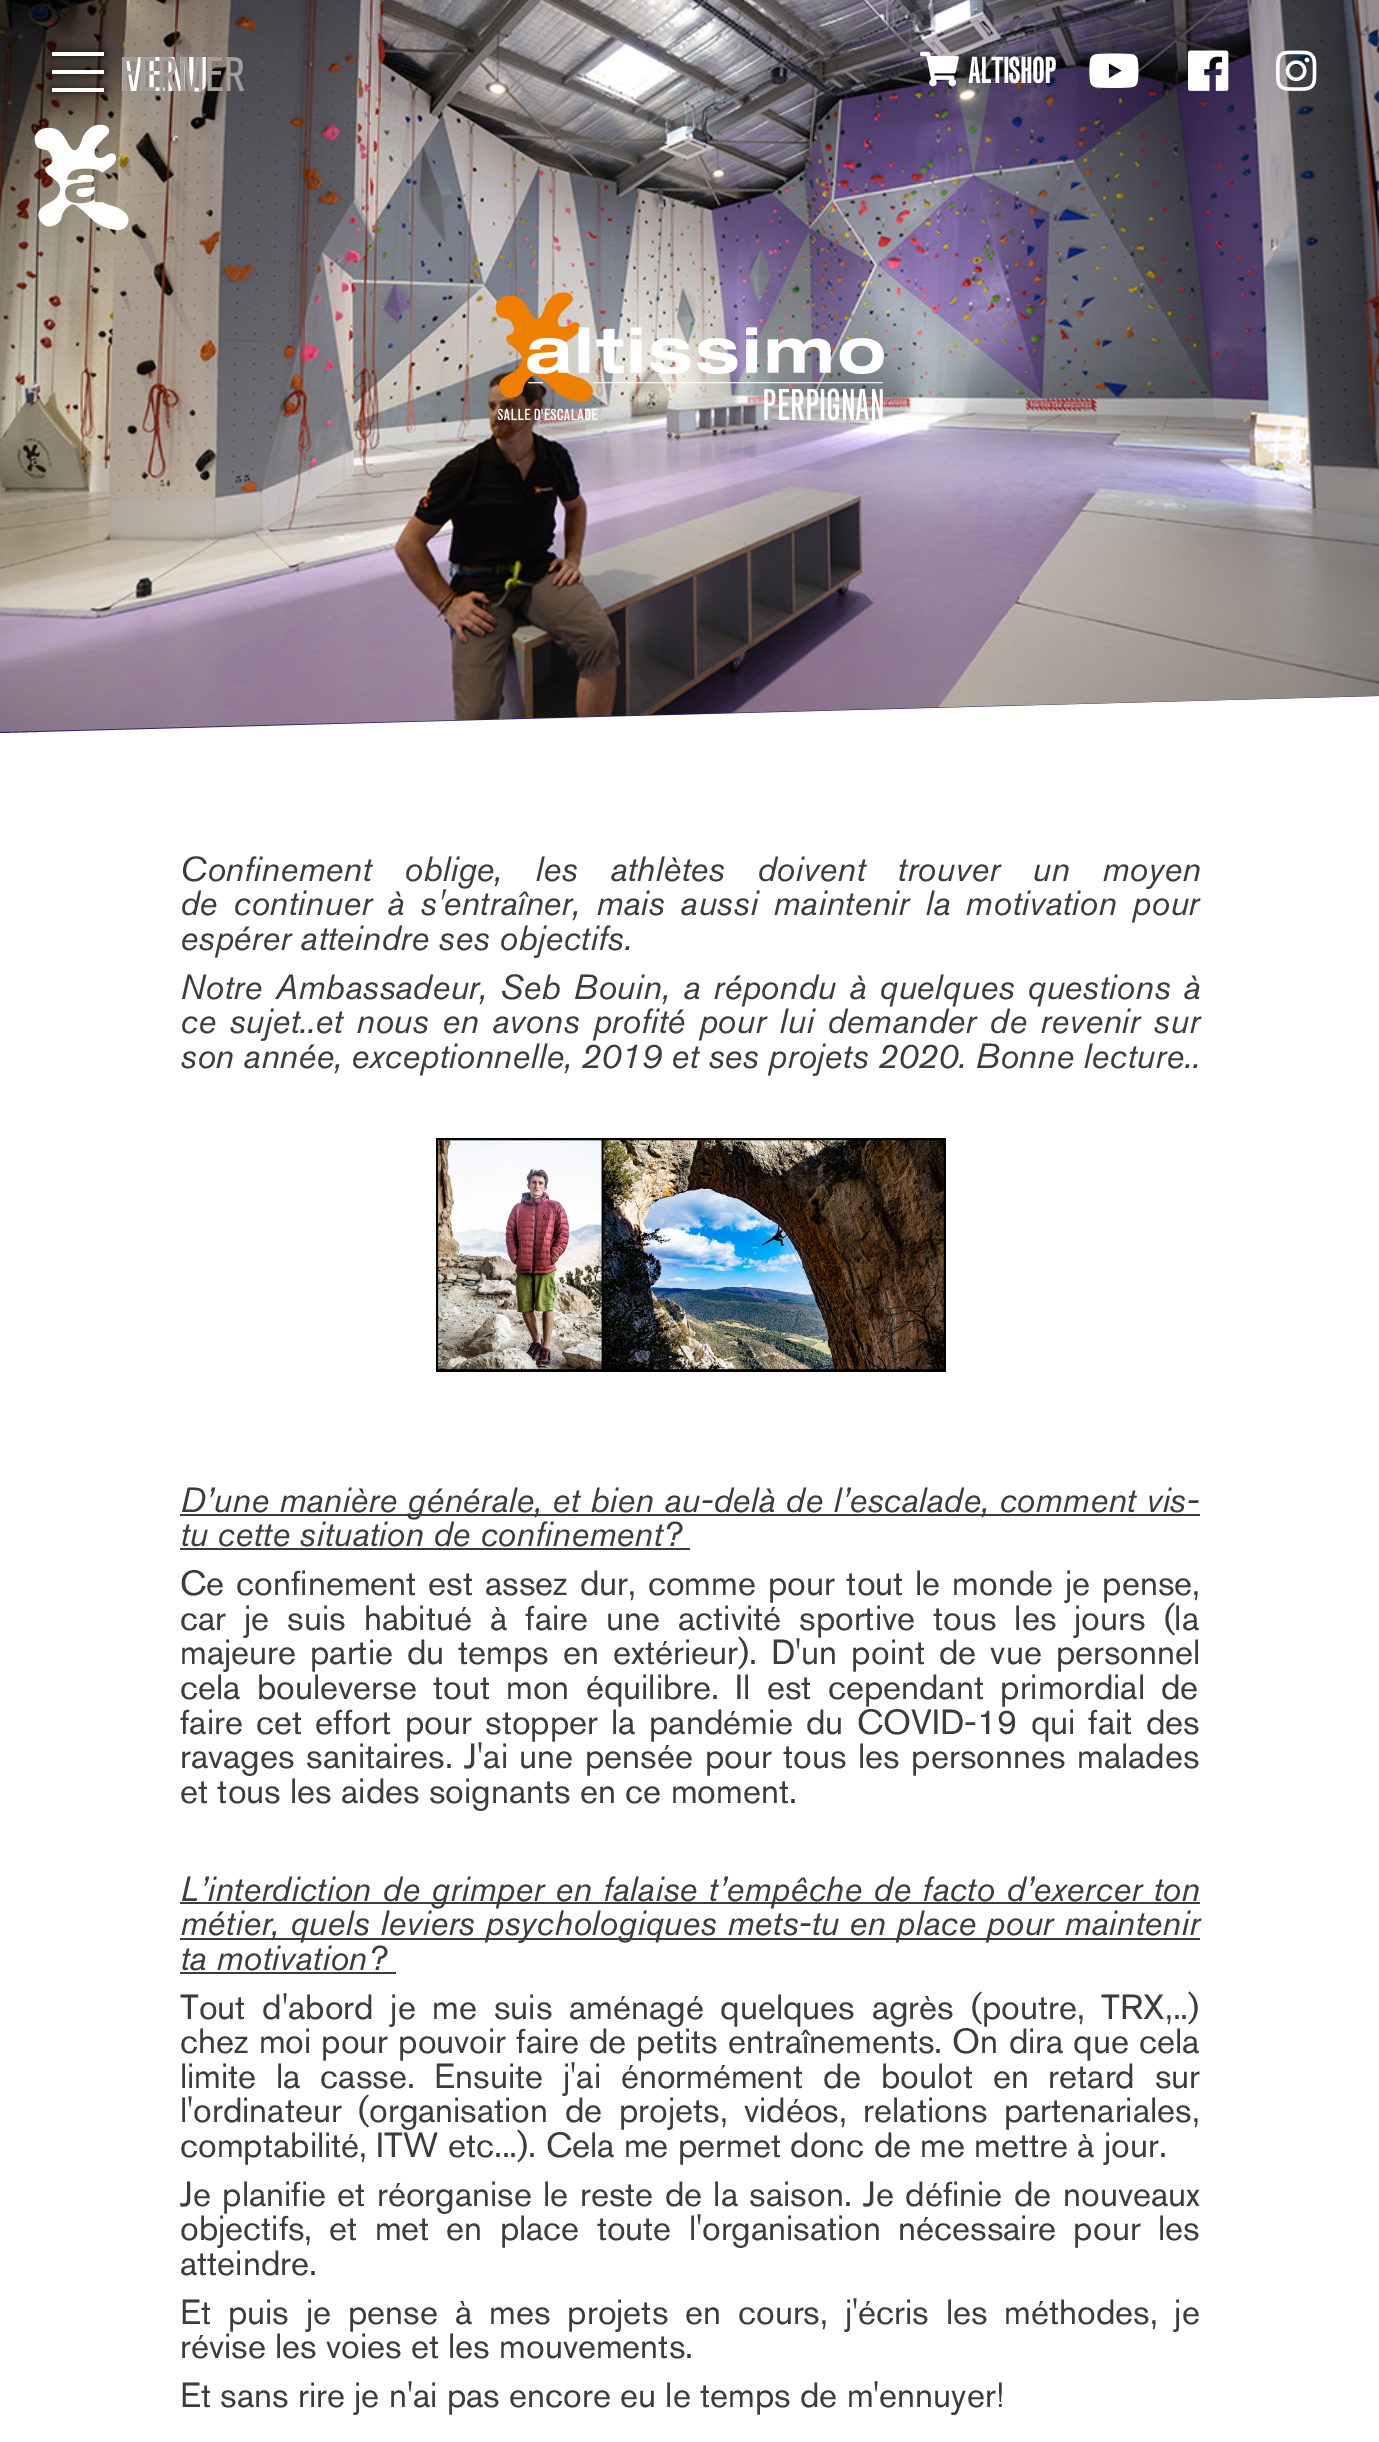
%!PS-Adobe-3.0
%%BoundingBox: 0 0 1379 2442
%%LanguageLevel: 3
%%Pages: 1
%%EndComments
%%BeginProlog
/setink { dup -16 bitshift 255 div exch dup -8 bitshift 255 and 255 div exch 255 and 255 div setrgbcolor } def
/usefont { [ exch dup neg 0 0 3 -1 roll 0 0 ] selectfont } def
/setalpha { dup .setfillconstantalpha .setstrokeconstantalpha } def
/rrect { 5 dict begin { /r /h /w /y /x } { exch def } forall
  x r add y moveto x w add y 2 copy h add r arct x w add y h add x 1 index r arct
  x y h add x y r arct x y 2 copy exch w add exch r arct closepath end } def
/softshadow { 12 dict begin { /a /b /q /h /w /y /x } { exch def } forall gsave /was 0 def
  9 -2 -9 { dup b mul 4 div /e exch def 1 sub .425 mul 2.718 exch exp 1 add a .99 .min exch div /now exch def
    1 1 now sub 1 was sub div sub setalpha /was now def
    w h .min e 2 mul add 0 gt { x e sub y e sub w e 2 mul add h e 2 mul add
      q e add b .6 mul add w h .min 2 div e add .min 0 .max rrect fill } if } for grestore end } def
/drawimage { 5 dict begin { /h /w /y /x /name } { exch def } forall
  gsave x y translate w h scale
  w h 8 [w 0 0 h 0 0] name (r) file false 3 colorimage grestore end } def
%%EndProlog
%%BeginSetup
<< /PageSize [1379 2442] /PageUsesTransparency true >> setpagedevice
%%EndSetup
%%Page: 1 1
0 .pushpdf14devicefilter
0 2442 translate 1 -1 scale
4 setmiterlimit
16#FFFFFF setink
0 0 1379 2442 rectfill
16#29235A setink
0 0 moveto 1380 -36 lineto 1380 696 lineto 0 733 lineto closepath fill
(img1.raw) 0 0 1379 732 drawimage
16#000000 setink
52 70 52 4 0 5 0.75 softshadow
16#FFFFFF setink
52 70 52 4 rectfill
16#000000 setink
52 52 52 4 0 5 0.75 softshadow
16#FFFFFF setink
52 52 52 4 rectfill
16#000000 setink
52 88 52 4 0 5 0.75 softshadow
16#FFFFFF setink
52 88 52 4 rectfill
/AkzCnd-Regular 48 usefont
120 91 moveto (MENU) show
16#A49E9A setink
120 91 moveto (FERMER) show
(img2.raw) 34 124 95 106 drawimage
(img3.raw) 920 51 39 36 drawimage
/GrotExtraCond-Bold 34.55 usefont
16#FFFFFF setink
968 83 moveto (ALTISHOP) show
(img4.raw) 1089 53 50 35 drawimage
(img5.raw) 1188 50 41 41 drawimage
(img6.raw) 1276 50 41 41 drawimage
(img7.raw) 495 292 389 129 drawimage
/GrotExtraCond-Regular 42.5 usefont
762 420 moveto (PERPIGNAN) show
/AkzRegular-Italic 34.55 usefont
16#3C3C3C setink
180 881 moveto 23 0 32 (Confinement oblige, les athlètes doivent trouver un moyen) widthshow
180 915 moveto 6.25 0 32 (de continuer à s'entraîner, mais aussi maintenir la motivation pour) widthshow
180 950 moveto (espérer atteindre ses objectifs.) show
180 999 moveto 3.5 0 32 (Notre Ambassadeur, Seb Bouin, a répondu à quelques questions à) widthshow
180 1033 moveto 4 0 32 (ce sujet..et nous en avons profité pour lui demander de revenir sur) widthshow
180 1068 moveto (son année, exceptionnelle, 2019 et ses projets 2020. Bonne lecture..) show
(img8.raw) 436 1138 510 234 drawimage
180 1514 1020 2 rectfill
180 1512 moveto 0.75 0 32 (D’une manière générale, et bien au-delà de l’escalade, comment vis-) widthshow
180 1546 moveto (tu cette situation de confinement?) show
180 1548 510 2 rectfill
/AkzRegular-Regular 34.55 usefont
180 1595 moveto 2.6 0 32 (Ce confinement est assez dur, comme pour tout le monde je pense,) widthshow
180 1630 moveto 8.75 0 32 (car je suis habitué à faire une activité sportive tous les jours \(la) widthshow
180 1664 moveto 4.75 0 32 (majeure partie du temps en extérieur\). D'un point de vue personnel) widthshow
180 1699 moveto 7 0 32 (cela bouleverse tout mon équilibre. Il est cependant primordial de) widthshow
180 1734 moveto 3.9 0 32 (faire cet effort pour stopper la pandémie du COVID-19 qui fait des) widthshow
180 1768 moveto 2.25 0 32 (ravages sanitaires. J'ai une pensée pour tous les personnes malades) widthshow
180 1803 moveto (et tous les aides soignants en ce moment.) show
180 1902 1020 2 rectfill
/AkzRegular-Italic 34.55 usefont
180 1901 moveto 2 0 32 (L’interdiction de grimper en falaise t’empêche de facto d’exercer ton) widthshow
180 1938 1020 2 rectfill
180 1935 moveto 1 0 32 (métier, quels leviers psychologiques mets-tu en place pour maintenir) widthshow
180 1970 moveto (ta motivation?) show
180 1972 216 2 rectfill
/AkzRegular-Regular 34.55 usefont
180 2019 moveto 7.5 0 32 (Tout d'abord je me suis aménagé quelques agrès \(poutre, TRX,..\)) widthshow
180 2053 moveto 0.75 0 32 (chez moi pour pouvoir faire de petits entraînements. On dira que cela) widthshow
180 2088 moveto 10.5 0 32 (limite la casse. Ensuite j'ai énormément de boulot en retard sur) widthshow
180 2122 moveto 7.25 0 32 (l'ordinateur \(organisation de projets, vidéos, relations partenariales,) widthshow
180 2157 moveto (comptabilité, ITW etc...\). Cela me permet donc de me mettre à jour.) show
180 2206 moveto 2.1 0 32 (Je planifie et réorganise le reste de la saison. Je définie de nouveaux) widthshow
180 2240 moveto 7.75 0 32 (objectifs, et met en place toute l'organisation nécessaire pour les) widthshow
180 2275 moveto (atteindre.) show
180 2324 moveto 7.6 0 32 (Et puis je pense à mes projets en cours, j'écris les méthodes, je) widthshow
180 2358 moveto (révise les voies et les mouvements.) show
180 2407 moveto (Et sans rire je n'ai pas encore eu le temps de m'ennuyer!) show
.poppdf14devicefilter showpage
%%EOF
